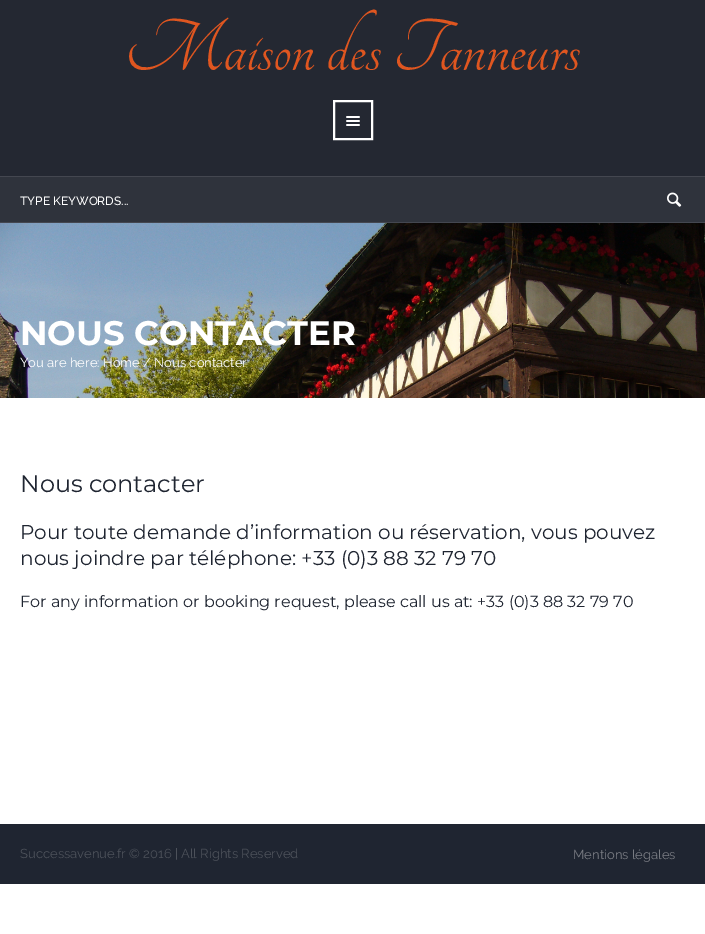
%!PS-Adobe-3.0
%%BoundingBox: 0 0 705 934
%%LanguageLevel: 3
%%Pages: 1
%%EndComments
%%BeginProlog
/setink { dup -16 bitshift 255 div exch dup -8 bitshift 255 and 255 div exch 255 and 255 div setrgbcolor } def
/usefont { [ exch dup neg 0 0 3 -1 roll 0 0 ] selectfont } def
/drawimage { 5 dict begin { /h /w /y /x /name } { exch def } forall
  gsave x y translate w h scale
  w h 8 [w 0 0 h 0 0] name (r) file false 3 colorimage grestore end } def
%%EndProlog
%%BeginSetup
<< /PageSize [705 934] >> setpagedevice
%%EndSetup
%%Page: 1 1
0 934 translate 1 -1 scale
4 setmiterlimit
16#FFFFFF setink
0 0 705 934 rectfill
16#242832 setink
0 0 705 176 rectfill
/Tangerine-Regular 80 usefont
16#DF5620 setink
125 70 moveto (Maison des Tanneurs) show
16#FFFFFF setink
2 setlinewidth
334 101 38 38 rectstroke
(img1.raw) 346 116 14 10 drawimage
[
    [0 177 705 45 16#2F333C]
    [0 176 705 1 16#444750]
    [0 222 705 1 16#444750]
] { aload pop setink rectfill } forall
/Raleway-Medium 12 usefont
16#FFFFFF setink
20 205 moveto (TYPE KEYWORDS...) show
(img2.raw) 667 192 15 15 drawimage
(img3.raw) 0 223 705 175 drawimage
/Montserrat-Bold 34 usefont
20 345 moveto (NOUS CONTACTER) show
/Raleway-Regular 13 usefont
20 367 moveto (You are here: Home / Nous contacter) show
/Montserrat-Regular 24 usefont
16#1F2531 setink
20 492 moveto (Nous contacter) show
/Montserrat-Regular 20 usefont
20 539 moveto (Pour toute demande d’information ou réservation, vous pouvez) show
20 565 moveto (nous joindre par téléphone: +33 \(0\)3 88 32 79 70) show
/Montserrat-Regular 16 usefont
20 607 moveto (For any information or booking request, please call us at: +33 \(0\)3 88 32 79 70) show
0 824 705 60 rectfill
/Raleway-Regular 13 usefont
16#4C515A setink
20 858 moveto (Successavenue.fr © 2016 | All Rights Reserved) show
16#797C83 setink
573 859 moveto (Mentions légales) show
showpage
%%EOF
